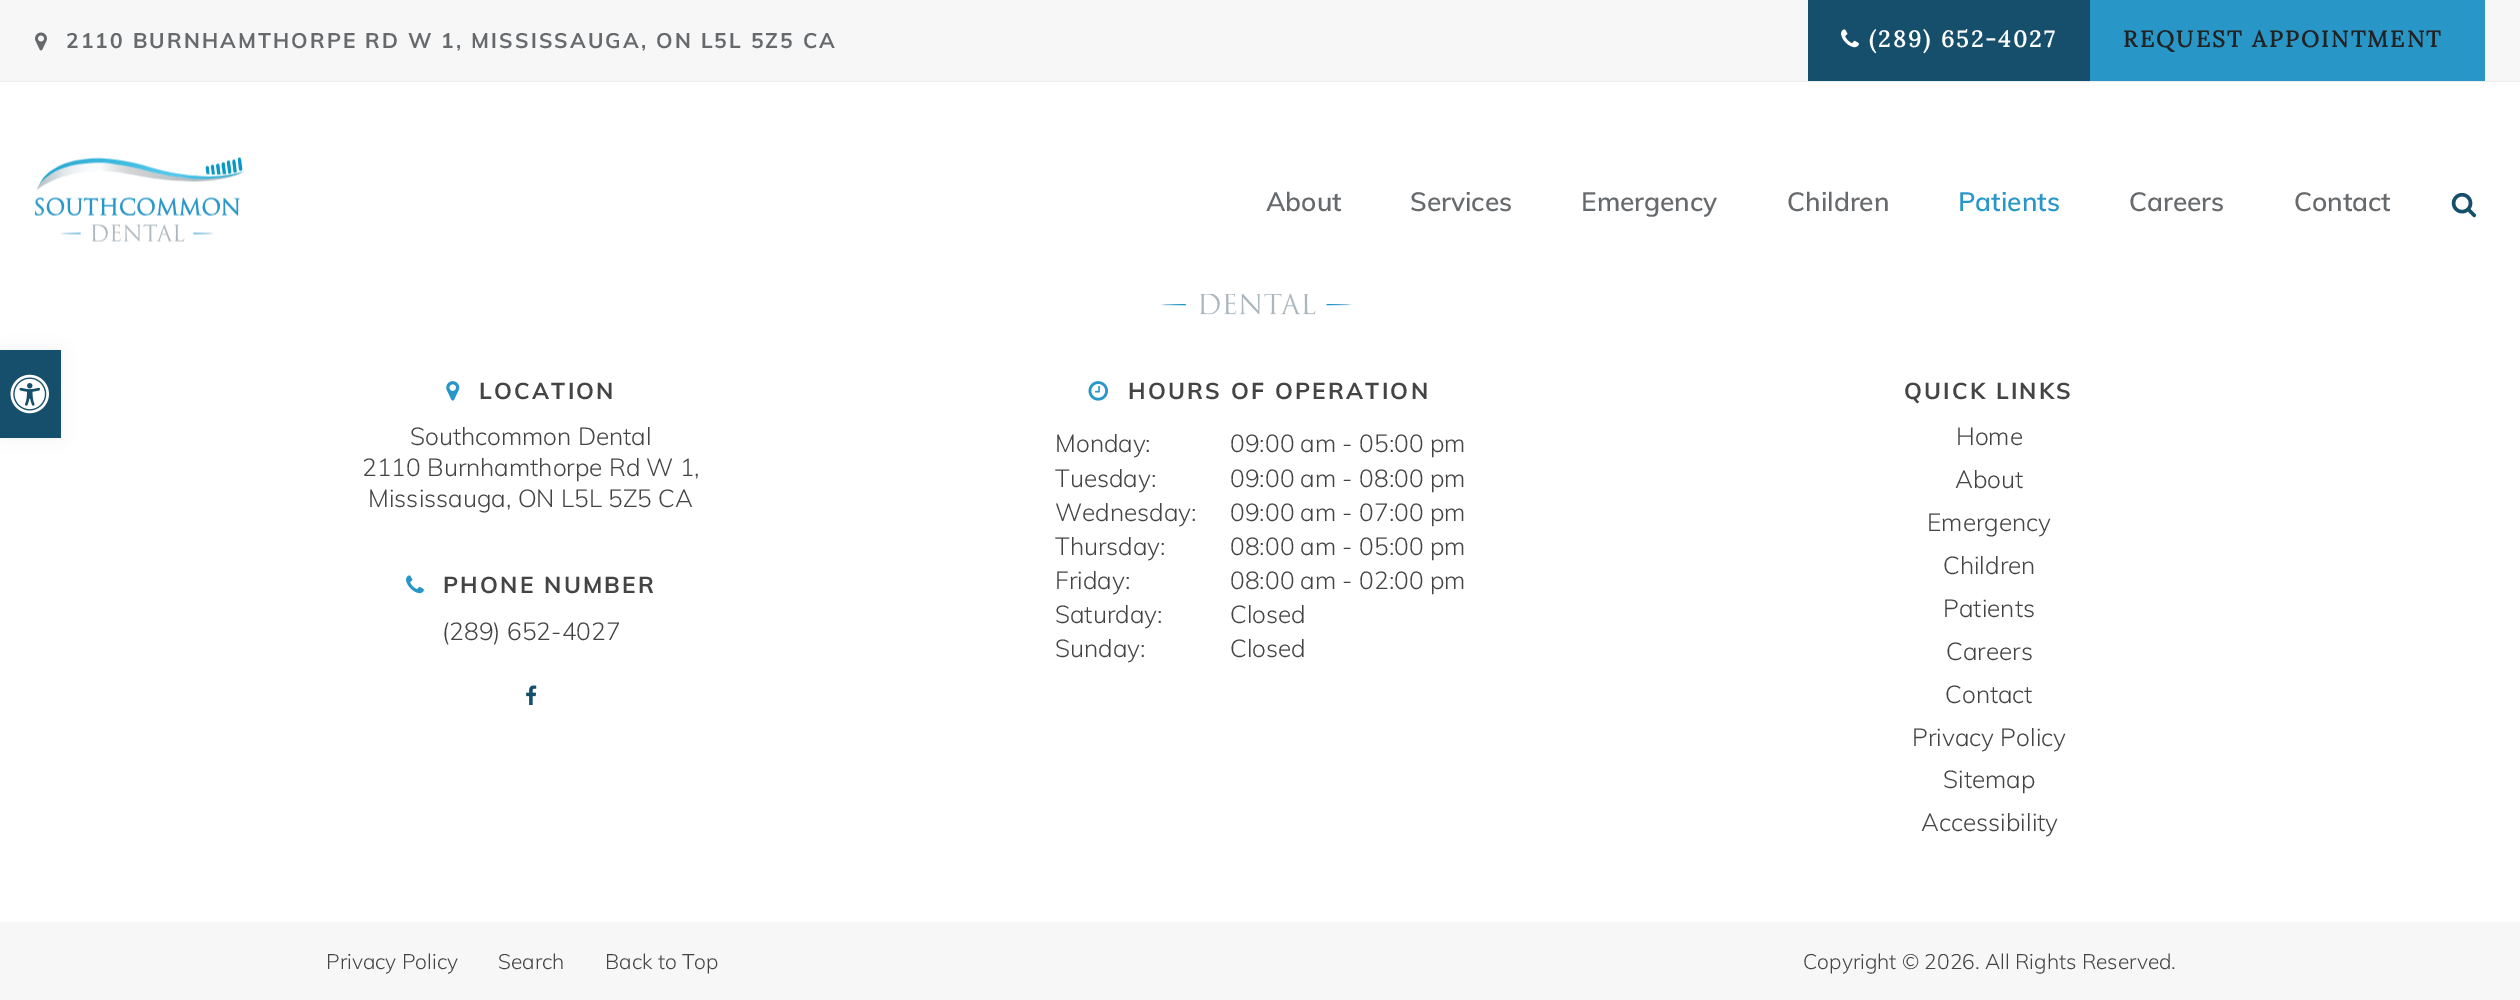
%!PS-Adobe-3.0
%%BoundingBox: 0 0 2520 1000
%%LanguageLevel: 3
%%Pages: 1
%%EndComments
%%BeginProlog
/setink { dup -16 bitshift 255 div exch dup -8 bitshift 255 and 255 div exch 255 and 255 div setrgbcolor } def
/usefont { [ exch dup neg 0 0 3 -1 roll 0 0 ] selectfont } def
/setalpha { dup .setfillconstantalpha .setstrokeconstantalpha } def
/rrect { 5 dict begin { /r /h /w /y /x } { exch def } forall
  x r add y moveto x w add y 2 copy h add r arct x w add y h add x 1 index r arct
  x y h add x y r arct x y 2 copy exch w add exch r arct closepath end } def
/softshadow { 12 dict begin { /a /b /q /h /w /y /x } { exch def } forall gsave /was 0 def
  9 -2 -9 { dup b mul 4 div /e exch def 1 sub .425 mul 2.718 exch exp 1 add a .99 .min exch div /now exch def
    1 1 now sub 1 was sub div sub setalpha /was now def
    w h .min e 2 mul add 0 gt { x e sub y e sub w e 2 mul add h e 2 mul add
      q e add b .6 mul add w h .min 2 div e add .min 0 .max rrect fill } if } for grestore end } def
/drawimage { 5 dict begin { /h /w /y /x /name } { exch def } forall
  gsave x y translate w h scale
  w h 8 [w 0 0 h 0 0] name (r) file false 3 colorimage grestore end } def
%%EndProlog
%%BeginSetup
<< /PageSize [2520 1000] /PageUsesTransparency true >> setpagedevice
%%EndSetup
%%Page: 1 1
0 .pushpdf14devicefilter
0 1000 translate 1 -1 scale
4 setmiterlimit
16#FFFFFF setink
0 0 2520 1000 rectfill
16#F7F7F7 setink
0 0 2520 82 rectfill
0.15 setalpha
16#ACB6BD setink
0 81 2520 2 rectfill
1 setalpha
(img1.raw) 35 32 12 19 drawimage
/Muli-Bold 21 usefont
16#676A6D setink
66 48 moveto 2.1 0 (2110 BURNHAMTHORPE RD W 1, MISSISSAUGA, ON L5L 5Z5 CA) ashow
16#154F6B setink
1808 0 282 81 rectfill
(img2.raw) 1841 29 18 19 drawimage
/Lora-Bold 22.75 usefont
16#FFFFFF setink
1869 47 moveto 2.25 0 (\(289\) 652-4027) ashow
16#2897C8 setink
2090 0 395 81 rectfill
16#222222 setink
2123 47 moveto 2.25 0 (REQUEST APPOINTMENT) ashow
0.9 setalpha
16#FFFFFF setink
0 82 2520 1 rectfill
1 setalpha
(img3.raw) 35 157 210 85 drawimage
/Muli-SemiBold 26.25 usefont
16#676A6D setink
[
    [(About) 1266 211]
    [(Services) 1410 211]
    [(Emergency) 1581 211]
    [(Children) 1787 211]
] { aload pop moveto show } forall
16#2897C8 setink
1958 211 moveto (Patients) show
16#676A6D setink
2129 211 moveto (Careers) show
2294 211 moveto (Contact) show
(img4.raw) 2451 192 26 26 drawimage
16#000000 setink
0 350 61 88 0 9 0.05 softshadow
16#154F6B setink
0 350 61 88 rectfill
(img5.raw) 10 374 39 40 drawimage
(img6.raw) 1160 294 192 21 drawimage
(img7.raw) 446 381 14 20 drawimage
/Muli-Bold 22.75 usefont
16#444444 setink
479 399 moveto 2.25 0 (LOCATION) ashow
/Muli-Light 24.5 usefont
[
    [(Southcommon Dental) 410 445]
    [(2110 Burnhamthorpe Rd W 1,) 362 476]
    [(Mississauga, ON L5L 5Z5 CA) 368 507]
] { aload pop moveto show } forall
(img8.raw) 406 575 18 19 drawimage
/Muli-Bold 22.75 usefont
443 593 moveto 2.25 0 (PHONE NUMBER) ashow
/Muli-Light 24.5 usefont
442 640 moveto (\(289\) 652-4027) show
(img9.raw) 526 685 11 20 drawimage
(img10.raw) 1088 381 20 20 drawimage
/Muli-Bold 22.75 usefont
1128 399 moveto 2.25 0 (HOURS OF OPERATION) ashow
/Muli-Light 24.5 usefont
[
    [(Monday:) 1055 452]
    [(09:00 am - 05:00 pm) 1230 452]
    [(Tuesday:) 1055 487]
    [(09:00 am - 08:00 pm) 1230 487]
    [(Wednesday:) 1055 521]
    [(09:00 am - 07:00 pm) 1230 521]
    [(Thursday:) 1055 555]
    [(08:00 am - 05:00 pm) 1230 555]
    [(Friday:) 1055 589]
    [(08:00 am - 02:00 pm) 1230 589]
    [(Saturday:) 1055 623]
    [(Closed) 1230 623]
    [(Sunday:) 1055 657]
    [(Closed) 1230 657]
] { aload pop moveto show } forall
/Muli-Bold 22.75 usefont
1904 399 moveto 2.25 0 (QUICK LINKS) ashow
/Muli-Light 24.5 usefont
[
    [(Home) 1956 445]
    [(About) 1955 488]
    [(Emergency) 1927 531]
    [(Children) 1943 574]
    [(Patients) 1943 617]
    [(Careers) 1946 660]
    [(Contact) 1945 703]
    [(Privacy Policy) 1912 746]
    [(Sitemap) 1943 788]
    [(Accessibility) 1921 831]
] { aload pop moveto show } forall
16#F7F7F7 setink
0 922 2520 78 rectfill
/Muli-Light 21 usefont
16#444444 setink
[
    [(Privacy Policy) 326 969]
    [(Search) 498 969]
    [(Back to Top) 605 969]
    [(Copyright © 2026. All Rights Reserved.) 1803 969]
] { aload pop moveto show } forall
.poppdf14devicefilter showpage
%%EOF
